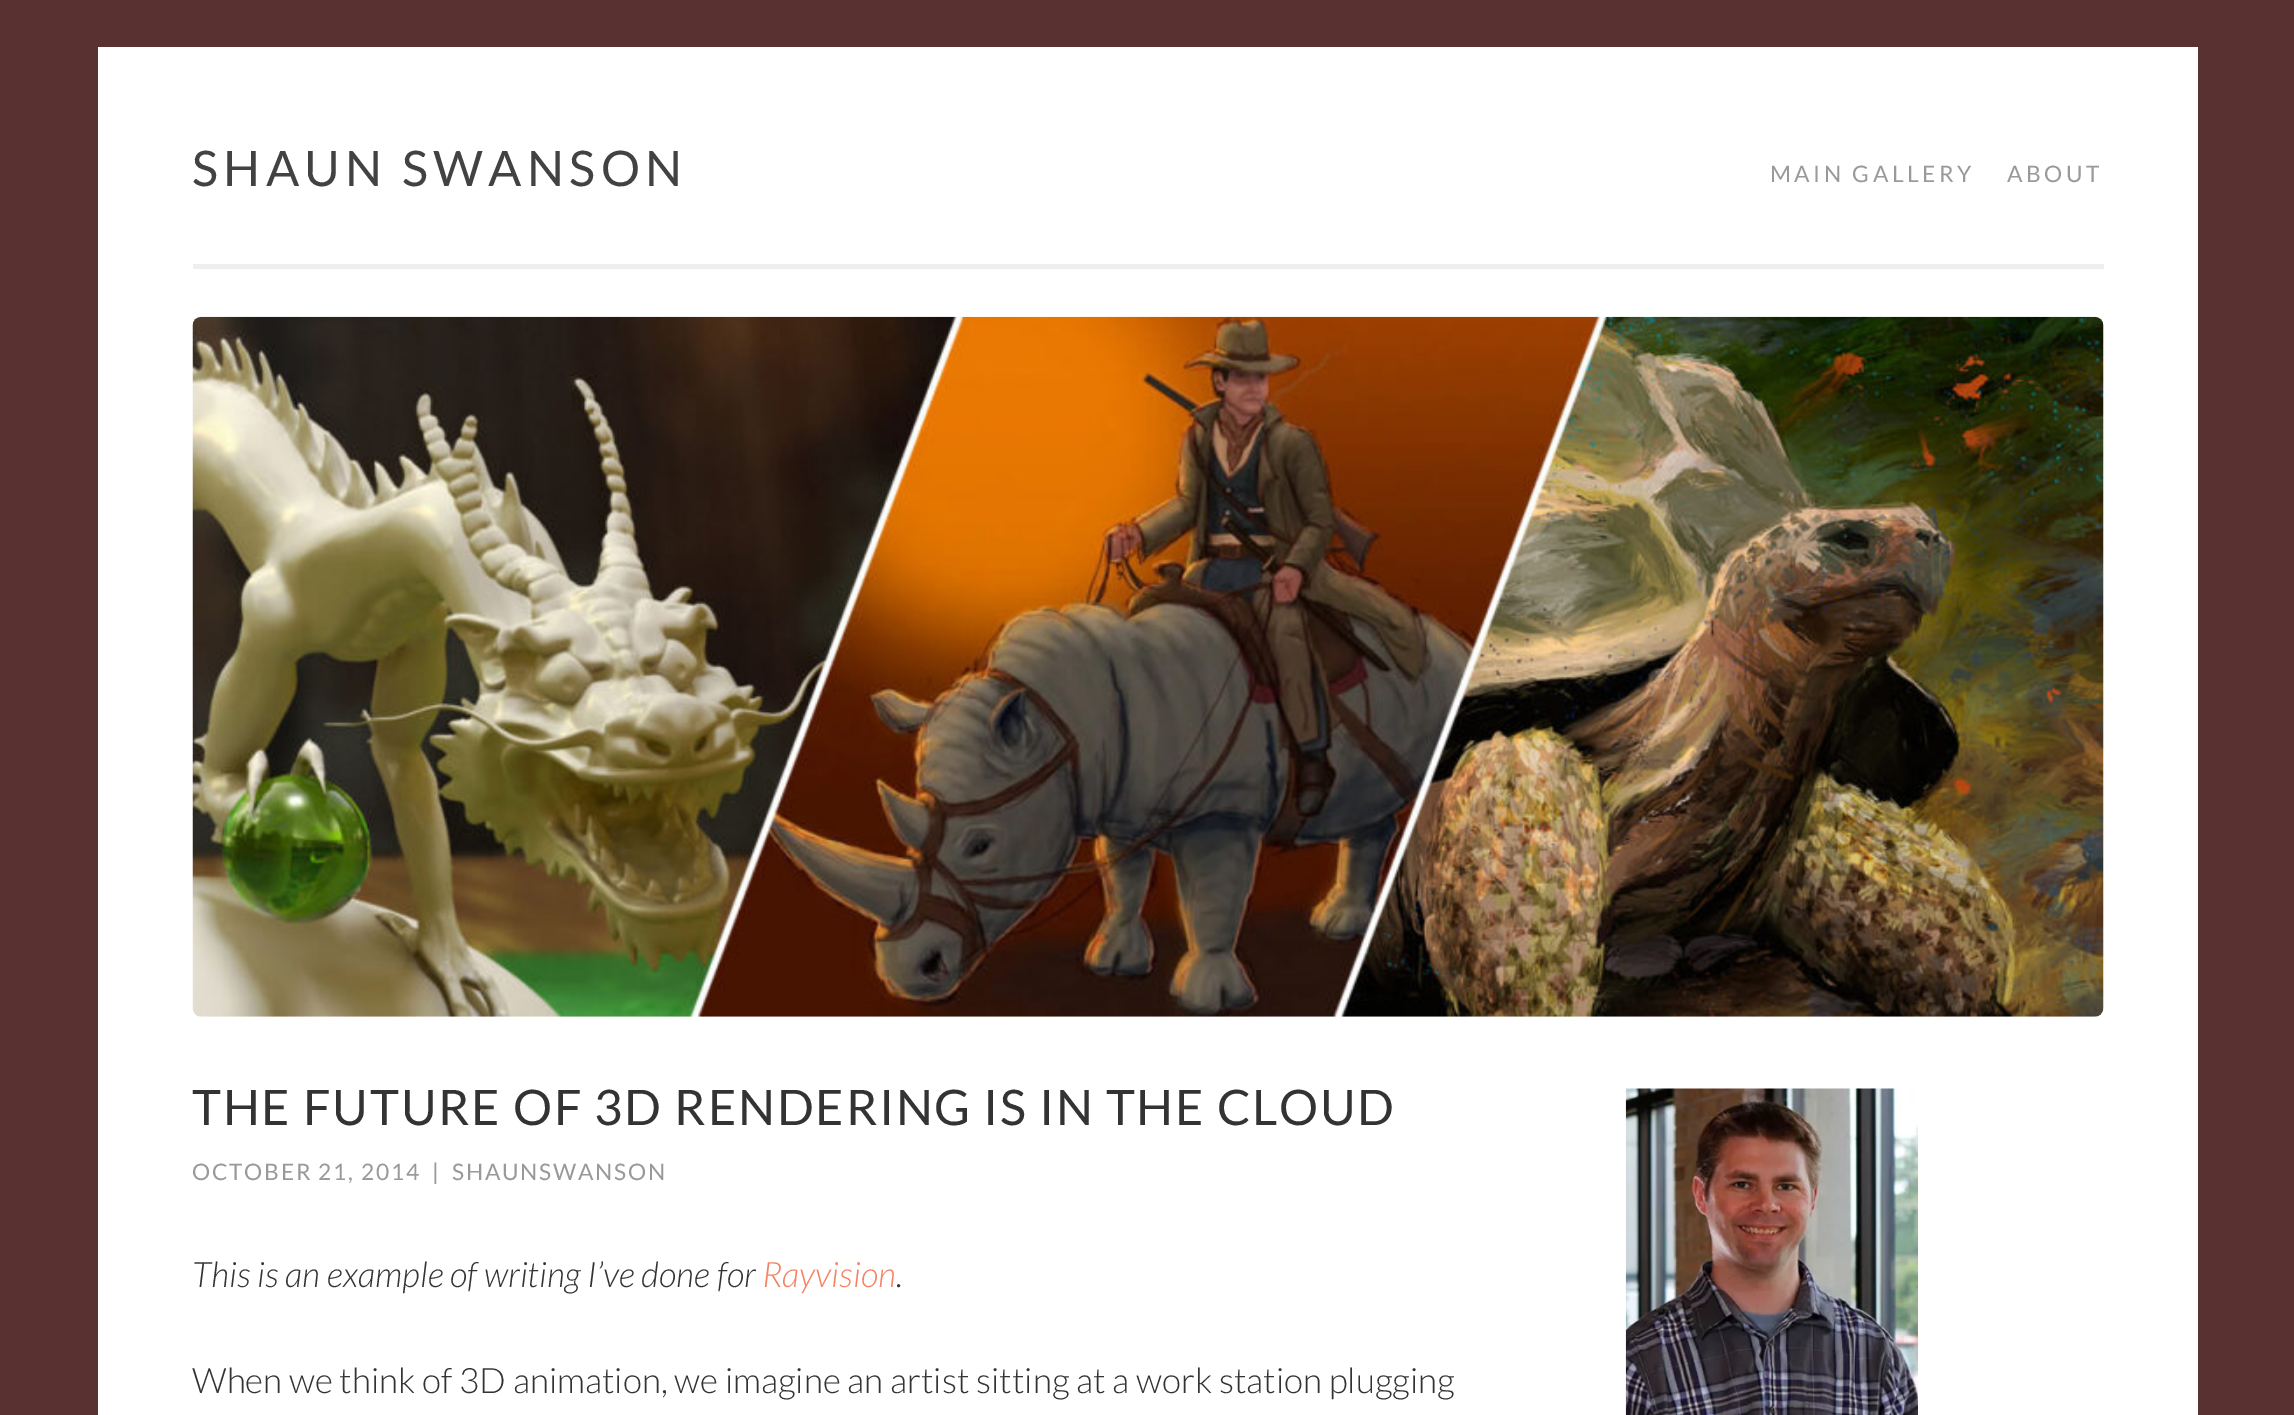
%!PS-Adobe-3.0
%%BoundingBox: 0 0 2294 1415
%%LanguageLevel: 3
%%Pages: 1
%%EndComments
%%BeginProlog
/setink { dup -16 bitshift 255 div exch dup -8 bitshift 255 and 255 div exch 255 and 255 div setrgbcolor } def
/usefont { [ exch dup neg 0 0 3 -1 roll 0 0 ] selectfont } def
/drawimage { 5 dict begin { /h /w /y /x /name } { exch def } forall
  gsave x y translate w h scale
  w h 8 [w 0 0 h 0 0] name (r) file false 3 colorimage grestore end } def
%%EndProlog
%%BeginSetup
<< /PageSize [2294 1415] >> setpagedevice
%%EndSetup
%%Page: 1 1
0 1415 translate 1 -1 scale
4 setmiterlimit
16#593131 setink
0 0 2294 1415 rectfill
16#FFFFFF setink
98 47 2100 1368 rectfill
16#EEEEEE setink
193 264 1911 5 rectfill
/Lato-Regular 49 usefont
16#424242 setink
192 186 moveto 5.25 0 (SHAUN SWANSON) ashow
/Lato-Regular 22.75 usefont
16#999999 setink
1770 182 moveto 3.5 0 (MAIN GALLERY) ashow
2007 182 moveto 3.5 0 (ABOUT) ashow
(img1.raw) 192 316 1912 701 drawimage
/Lato-Regular 49 usefont
16#333333 setink
192 1125 moveto 1.75 0 (THE FUTURE OF 3D RENDERING IS IN THE CLOUD) ashow
/Lato-Regular 22.75 usefont
16#999999 setink
192 1180 moveto 1.75 0 (OCTOBER 21, 2014) ashow
432 1180 moveto 1.75 0 (|) ashow
452 1180 moveto 1.75 0 (SHAUNSWANSON) ashow
/Lato-LightItalic 35 usefont
16#333333 setink
192 1287 moveto (This is an example of writing I’ve done for) show
16#F68060 setink
762 1287 moveto (Rayvision) show
16#333333 setink
896 1287 moveto (.) show
/Lato-Light 35 usefont
192 1393 moveto (When we think of 3D animation, we imagine an artist sitting at a work station plugging) show
(img2.raw) 1625 1088 293 327 drawimage
showpage
%%EOF
